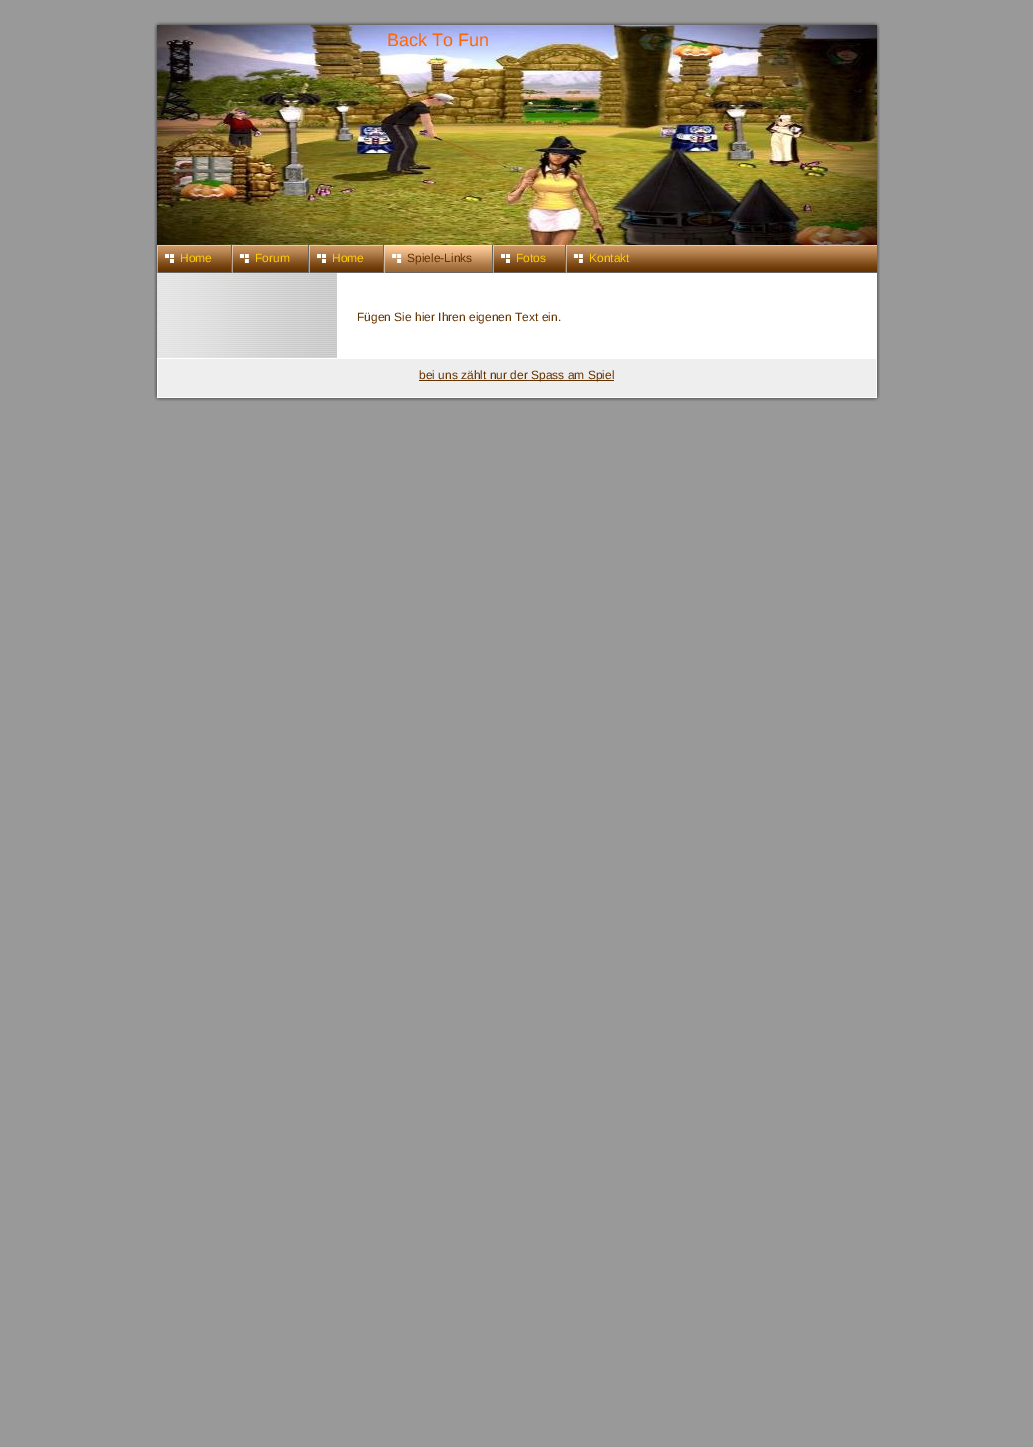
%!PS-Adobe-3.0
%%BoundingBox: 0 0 1033 1447
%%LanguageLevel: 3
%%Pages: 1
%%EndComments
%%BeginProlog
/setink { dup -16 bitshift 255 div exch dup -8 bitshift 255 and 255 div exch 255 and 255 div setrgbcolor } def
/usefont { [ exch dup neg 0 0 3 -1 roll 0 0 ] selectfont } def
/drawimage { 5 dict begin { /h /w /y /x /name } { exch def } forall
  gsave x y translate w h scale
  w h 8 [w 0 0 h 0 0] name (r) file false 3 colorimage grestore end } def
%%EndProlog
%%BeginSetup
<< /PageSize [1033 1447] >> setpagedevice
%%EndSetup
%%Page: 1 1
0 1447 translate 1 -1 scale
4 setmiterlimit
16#999999 setink
0 0 1033 1447 rectfill
(img1.raw) 154 220 726 138 drawimage
(img2.raw) 154 0 726 220 drawimage
(img3.raw) 157 25 720 220 drawimage
/LiberationSans-Regular 18 usefont
16#FF6600 setink
387 46 moveto (Back To Fun) show
(img4.raw) 174 245 703 28 drawimage
(img5.raw) 156 245 18 28 drawimage
/LiberationSans-Regular 12 usefont
16#FFCC00 setink
180 262 moveto (Home) show
(img6.raw) 231 245 18 28 drawimage
255 262 moveto (Forum) show
(img5.raw) 308 245 18 28 drawimage
332 262 moveto (Home) show
(img7.raw) 383 245 109 28 drawimage
16#663300 setink
407 262 moveto (Spiele-Links) show
(img5.raw) 492 245 18 28 drawimage
16#FFCC00 setink
516 262 moveto (Fotos) show
(img6.raw) 565 245 18 28 drawimage
589 262 moveto (Kontakt) show
16#663300 setink
357 321 moveto (Fügen Sie hier Ihren eigenen Text ein.) show
(img8.raw) 154 358 726 65 drawimage
419 380 195 1 rectfill
419 379 moveto (bei uns zählt nur der Spass am Spiel) show
showpage
%%EOF
